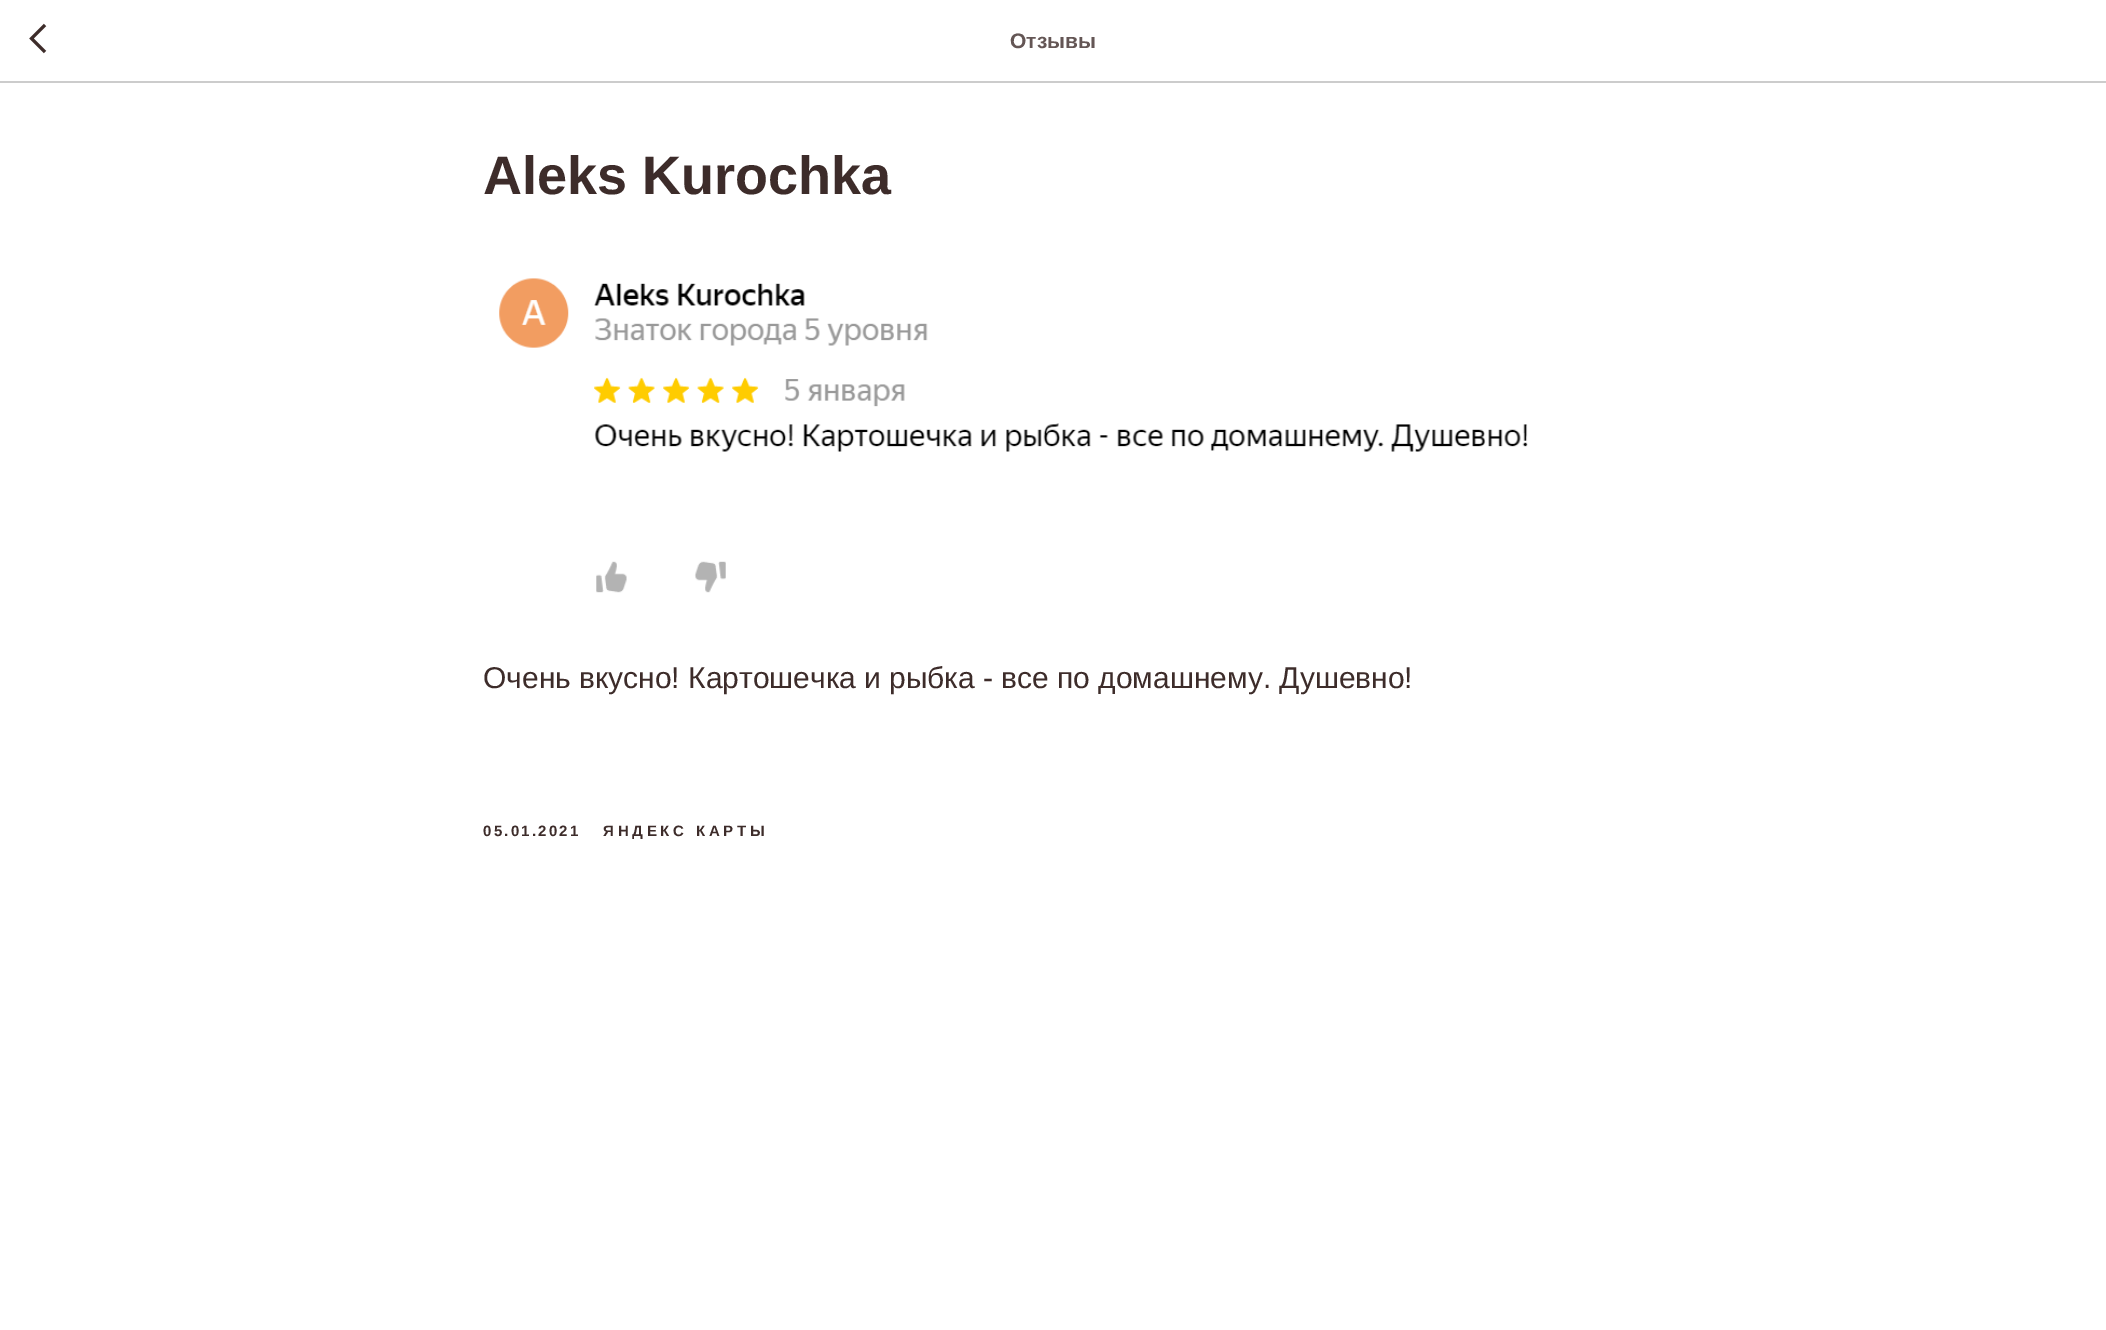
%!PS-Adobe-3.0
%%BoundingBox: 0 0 2106 1330
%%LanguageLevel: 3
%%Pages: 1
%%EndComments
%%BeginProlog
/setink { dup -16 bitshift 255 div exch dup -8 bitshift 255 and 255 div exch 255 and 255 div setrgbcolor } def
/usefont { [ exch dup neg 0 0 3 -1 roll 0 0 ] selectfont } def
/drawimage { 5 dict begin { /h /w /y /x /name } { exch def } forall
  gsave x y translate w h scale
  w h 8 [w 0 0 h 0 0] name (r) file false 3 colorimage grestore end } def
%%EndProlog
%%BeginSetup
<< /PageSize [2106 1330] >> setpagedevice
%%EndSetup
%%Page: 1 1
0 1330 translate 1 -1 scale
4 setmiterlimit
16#FFFFFF setink
0 0 2106 1330 rectfill
16#CCCCCC setink
0 81 2106 2 rectfill
16#3D2C2A setink
3 setlinewidth
45 52 moveto 31.5 38.5 lineto 45 25 lineto stroke
/LiberationSans-Bold 21 usefont
16#645655 setink
1010 48 moveto (Отзывы) show
/LiberationSans-Bold 54 usefont
16#3D2C2A setink
483 194 moveto (Aleks Kurochka) show
(img1.raw) 499 278 1029 315 drawimage
/LiberationSans-Regular 30 usefont
483 688 moveto (Очень вкусно! Картошечка и рыбка - все по домашнему. Душевно!) show
/LiberationSans-Bold 15 usefont
483 836 moveto 2.25 0 (05.01.2021) ashow
603 836 moveto 3.75 0 (ЯНДЕКС КАРТЫ) ashow
showpage
%%EOF
